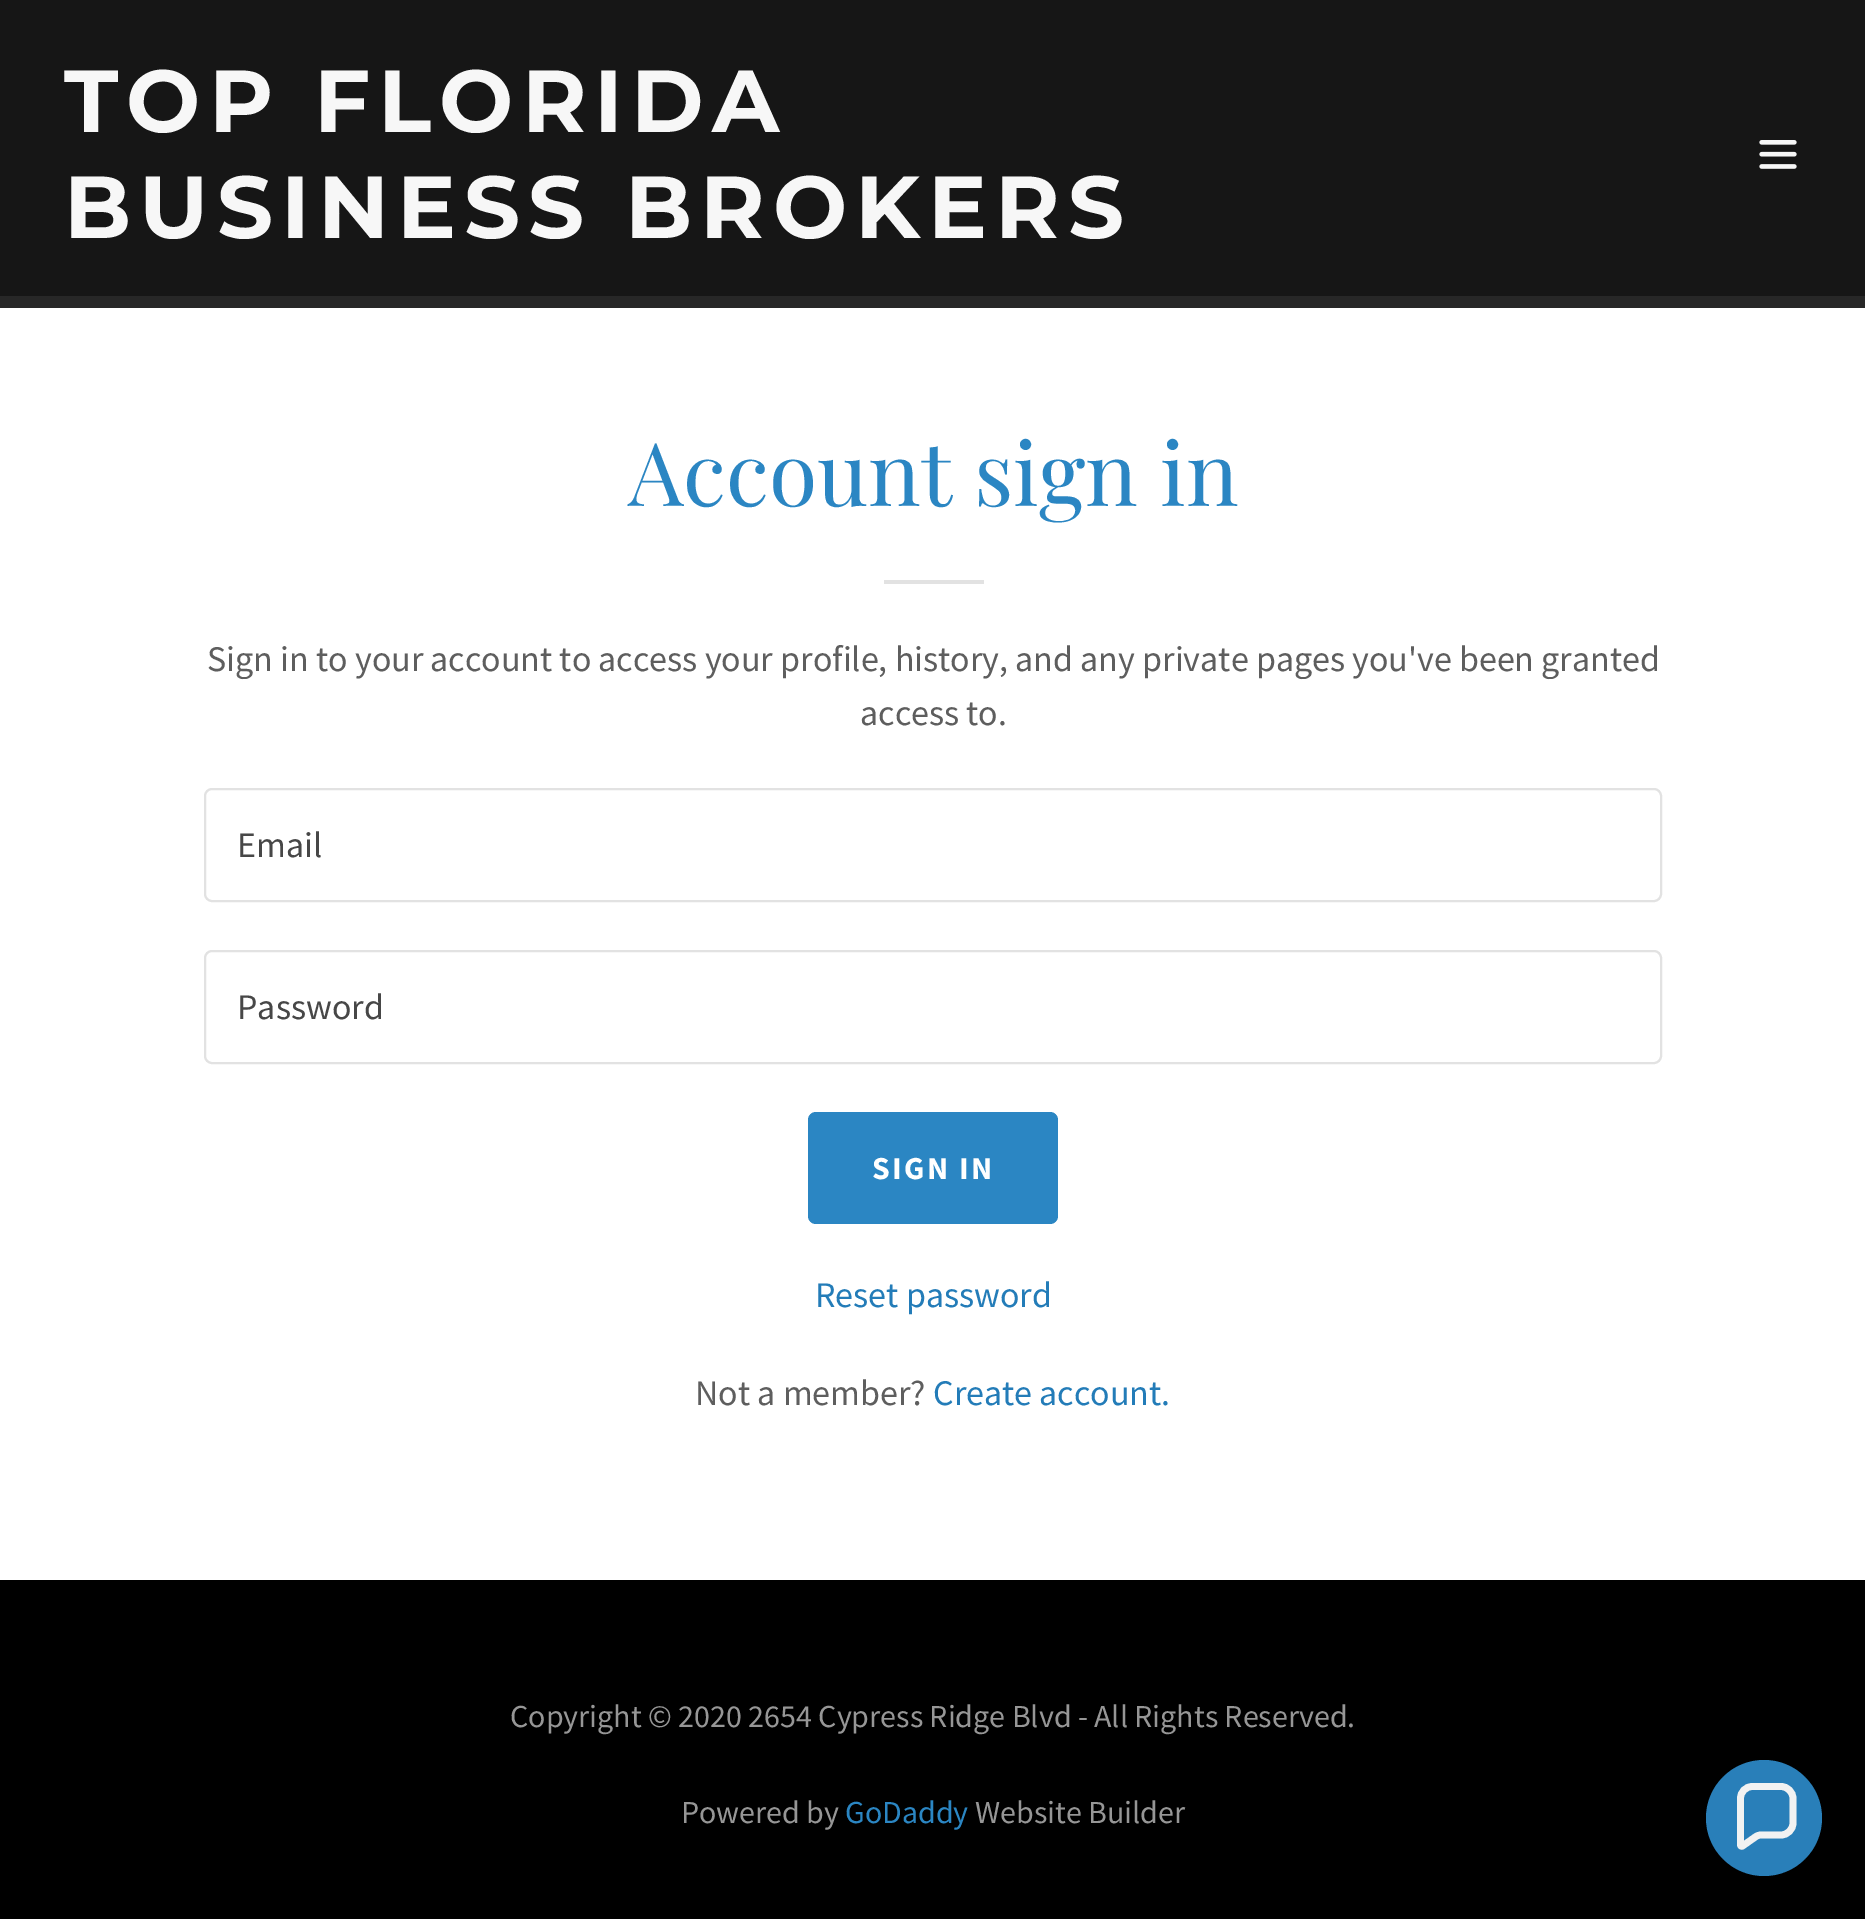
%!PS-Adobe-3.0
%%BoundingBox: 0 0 1865 1919
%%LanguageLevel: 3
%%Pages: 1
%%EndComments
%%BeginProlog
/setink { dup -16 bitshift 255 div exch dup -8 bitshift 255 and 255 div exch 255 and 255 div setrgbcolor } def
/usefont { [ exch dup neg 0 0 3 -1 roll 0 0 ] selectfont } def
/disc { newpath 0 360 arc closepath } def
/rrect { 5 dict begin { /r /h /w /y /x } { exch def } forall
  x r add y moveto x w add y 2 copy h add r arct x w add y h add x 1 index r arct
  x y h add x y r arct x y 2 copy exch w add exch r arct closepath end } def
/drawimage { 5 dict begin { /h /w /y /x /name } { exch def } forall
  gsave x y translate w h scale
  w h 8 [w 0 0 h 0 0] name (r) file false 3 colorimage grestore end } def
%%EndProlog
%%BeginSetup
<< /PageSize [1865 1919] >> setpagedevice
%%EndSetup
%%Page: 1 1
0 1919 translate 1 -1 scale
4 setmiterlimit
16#000000 setink
0 0 1865 1919 rectfill
16#161616 setink
0 0 1865 296 rectfill
/Montserrat-Bold 88 usefont
16#F7F7F7 setink
64 132 moveto 8 0 (TOP FLORIDA) ashow
64 238 moveto 8 0 (BUSINESS BROKERS) ashow
(img1.raw) 1759 140 38 29 drawimage
16#FFFFFF setink
0 308 1865 1272 rectfill
16#272727 setink
0 296 1865 12 rectfill
/PlayfairDisplay-Regular 88 usefont
16#2B86C3 setink
628 506 moveto (Account sign in) show
16#E2E2E2 setink
884 580 100 4 rectfill
/SourceSansPro-Regular 36 usefont
16#5E5E5E setink
207 671 moveto (Sign in to your account to access your profile, history, and any private pages you've been granted) show
860 725 moveto (access to.) show
16#E2E2E2 setink
2 setlinewidth
205 789 1456 112 7 rrect stroke
16#474747 setink
237 857 moveto (Email) show
16#E2E2E2 setink
205 951 1456 112 7 rrect stroke
16#474747 setink
237 1019 moveto (Password) show
16#2B86C3 setink
808 1112 250 112 8 rrect fill
/SourceSansPro-Bold 32 usefont
16#FFFFFF setink
872 1179 moveto 2.25 0 (SIGN IN) ashow
/SourceSansPro-Regular 36 usefont
16#237CB8 setink
815 1307 moveto (Reset password) show
16#5E5E5E setink
695 1405 moveto (Not a member?) show
16#237CB8 setink
933 1405 moveto (Create account.) show
/SourceSansPro-Regular 32 usefont
16#969696 setink
510 1727 moveto (Copyright © 2020 2654 Cypress Ridge Blvd - All Rights Reserved.) show
681 1823 moveto (Powered by) show
16#2B86C3 setink
845 1823 moveto (GoDaddy) show
16#969696 setink
975 1823 moveto (Website Builder) show
16#297FB9 setink
1764 1818 58 disc fill
16#F2F2F2 setink
6.8 setlinewidth
1781 1786.5 moveto 1752.5 1786.5 lineto 1745.5 1786.5 1740.5 1792 1740.5 1798.5 curveto 1740.5 1844.5 lineto 1740.5 1846 1741.5 1846.5 1742.5 1846 curveto 1756 1836.5 lineto 1757.5 1835.5 1759.5 1835 1761 1835 curveto 1781 1835 lineto 1787.5 1835 1793 1829.5 1793 1823 curveto 1793 1798.5 lineto 1793 1792 1787.5 1786.5 1781 1786.5 curveto closepath stroke
showpage
%%EOF
